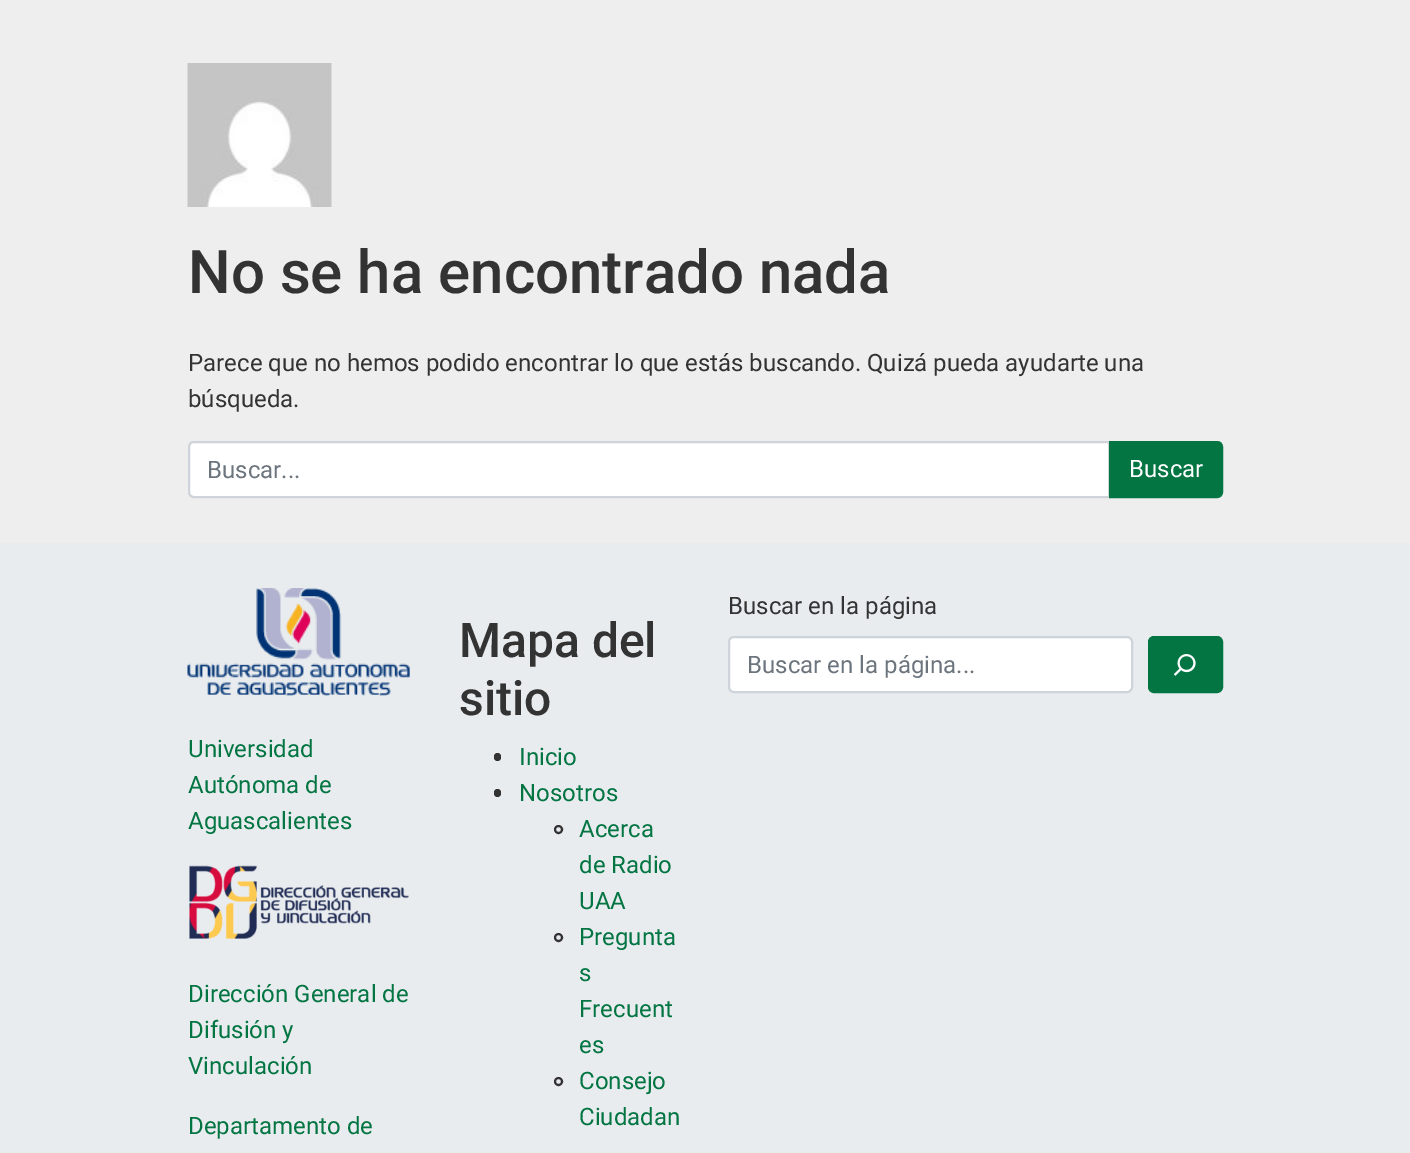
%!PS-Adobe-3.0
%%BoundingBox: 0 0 1410 1153
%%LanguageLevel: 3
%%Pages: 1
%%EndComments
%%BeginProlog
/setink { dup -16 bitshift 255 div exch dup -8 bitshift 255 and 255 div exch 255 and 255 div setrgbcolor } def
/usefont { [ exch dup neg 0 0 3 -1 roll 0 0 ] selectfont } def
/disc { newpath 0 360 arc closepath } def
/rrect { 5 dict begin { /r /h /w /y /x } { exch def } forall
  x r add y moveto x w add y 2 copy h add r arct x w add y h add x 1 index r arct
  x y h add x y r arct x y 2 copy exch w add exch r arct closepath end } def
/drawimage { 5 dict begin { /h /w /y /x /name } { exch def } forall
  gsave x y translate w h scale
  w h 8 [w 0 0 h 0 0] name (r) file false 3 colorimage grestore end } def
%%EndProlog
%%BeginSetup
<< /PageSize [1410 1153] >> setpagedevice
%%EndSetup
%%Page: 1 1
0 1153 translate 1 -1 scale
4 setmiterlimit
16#EEEEEE setink
0 0 1410 1153 rectfill
(img1.raw) 187 63 145 144 drawimage
/Roboto-Medium 60 usefont
16#333333 setink
188 293 moveto (No se ha encontrado nada) show
/Roboto-Regular 24 usefont
188 371 moveto (Parece que no hemos podido encontrar lo que estás buscando. Quizá pueda ayudarte una) show
188 407 moveto (búsqueda.) show
16#FFFFFF setink
194 442 moveto 1109 442 lineto 1109 497 lineto 194 497 lineto 191 497 189 495 189 492 curveto 189 447 lineto 189 444 191 442 194 442 curveto closepath gsave fill grestore
16#CED4DA setink
2 setlinewidth
stroke
16#6C757D setink
207 478 moveto (Buscar...) show
16#027543 setink
1110 442 moveto 1217 442 lineto 1220 442 1222 444 1222 447 curveto 1222 492 lineto 1222 495 1220 497 1217 497 curveto 1110 497 lineto closepath gsave fill grestore
stroke
16#FFFFFF setink
1129 477 moveto (Buscar) show
16#E9ECEF setink
0 543 1410 610 rectfill
(img2.raw) 187 588 223 108 drawimage
16#027543 setink
[
    [(Universidad) 188 757]
    [(Autónoma de) 188 793]
    [(Aguascalientes) 188 829]
] { aload pop moveto show } forall
(img3.raw) 189 865 220 74 drawimage
[
    [(Dirección General de) 188 1002]
    [(Difusión y) 188 1038]
    [(Vinculación) 188 1074]
    [(Departamento de) 188 1134]
] { aload pop moveto show } forall
/Roboto-Medium 48 usefont
16#333333 setink
459 657 moveto (Mapa del) show
459 715 moveto (sitio) show
494 753 7 8 3.5 rrect fill
/Roboto-Regular 24 usefont
16#027543 setink
519 765 moveto (Inicio) show
16#333333 setink
494 789 7 8 3.5 rrect fill
16#027543 setink
519 801 moveto (Nosotros) show
16#333333 setink
558.5 829.5 3.5 disc stroke
16#027543 setink
[
    [(Acerca) 579 837]
    [(de Radio) 579 873]
    [(UAA) 579 909]
] { aload pop moveto show } forall
16#333333 setink
558.5 937.5 3.5 disc stroke
16#027543 setink
[
    [(Pregunta) 579 945]
    [(s) 579 981]
    [(Frecuent) 579 1017]
    [(es) 579 1053]
] { aload pop moveto show } forall
16#333333 setink
558.5 1081.5 3.5 disc stroke
16#027543 setink
579 1089 moveto (Consejo) show
579 1125 moveto (Ciudadan) show
16#333333 setink
728 614 moveto (Buscar en la página) show
16#FFFFFF setink
729 637 403 55 5 rrect gsave fill grestore
16#CED4DA setink
stroke
16#6C757D setink
747 673 moveto (Buscar en la página...) show
16#027543 setink
1149 637 73 55 5 rrect gsave fill grestore
stroke
(img4.raw) 1173 654 23 22 drawimage
showpage
%%EOF
